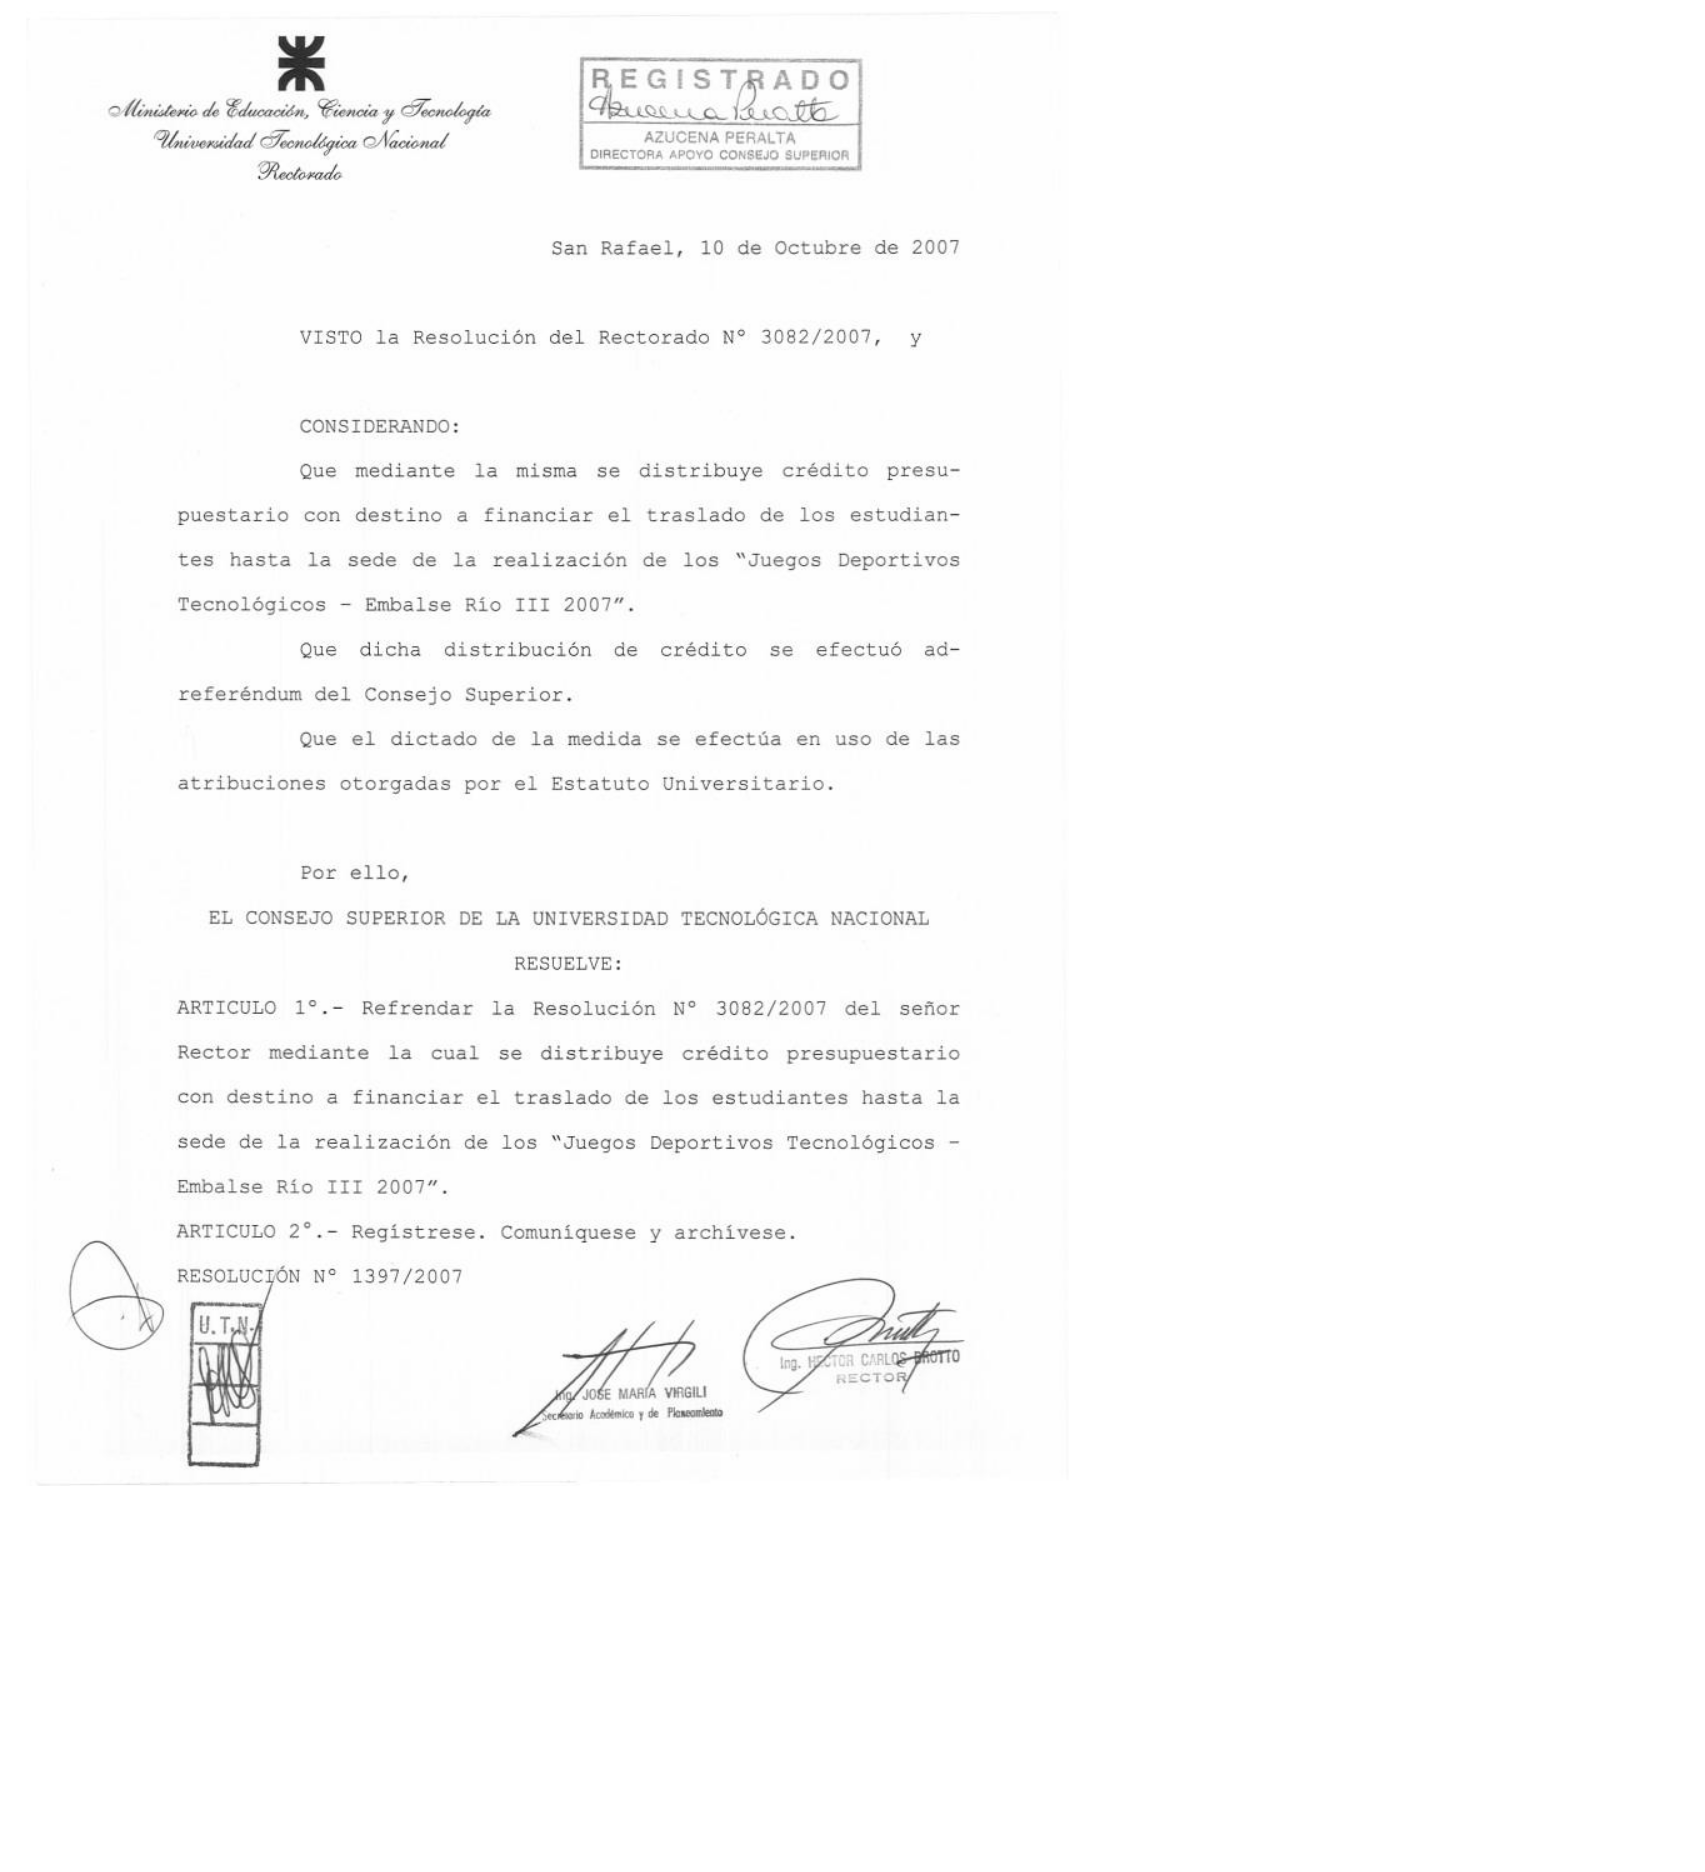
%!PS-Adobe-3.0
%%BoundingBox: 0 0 1705 1872
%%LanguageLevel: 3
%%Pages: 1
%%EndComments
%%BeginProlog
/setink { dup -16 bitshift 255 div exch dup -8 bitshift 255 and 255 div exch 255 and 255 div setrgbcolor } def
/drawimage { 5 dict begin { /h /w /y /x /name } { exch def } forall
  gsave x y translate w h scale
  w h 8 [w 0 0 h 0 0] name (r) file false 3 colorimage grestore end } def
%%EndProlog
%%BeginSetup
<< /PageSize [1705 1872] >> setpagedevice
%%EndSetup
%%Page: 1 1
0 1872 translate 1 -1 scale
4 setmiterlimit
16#FFFFFF setink
0 0 1705 1872 rectfill
(img1.raw) 26 11 1043 1475 drawimage
showpage
%%EOF
